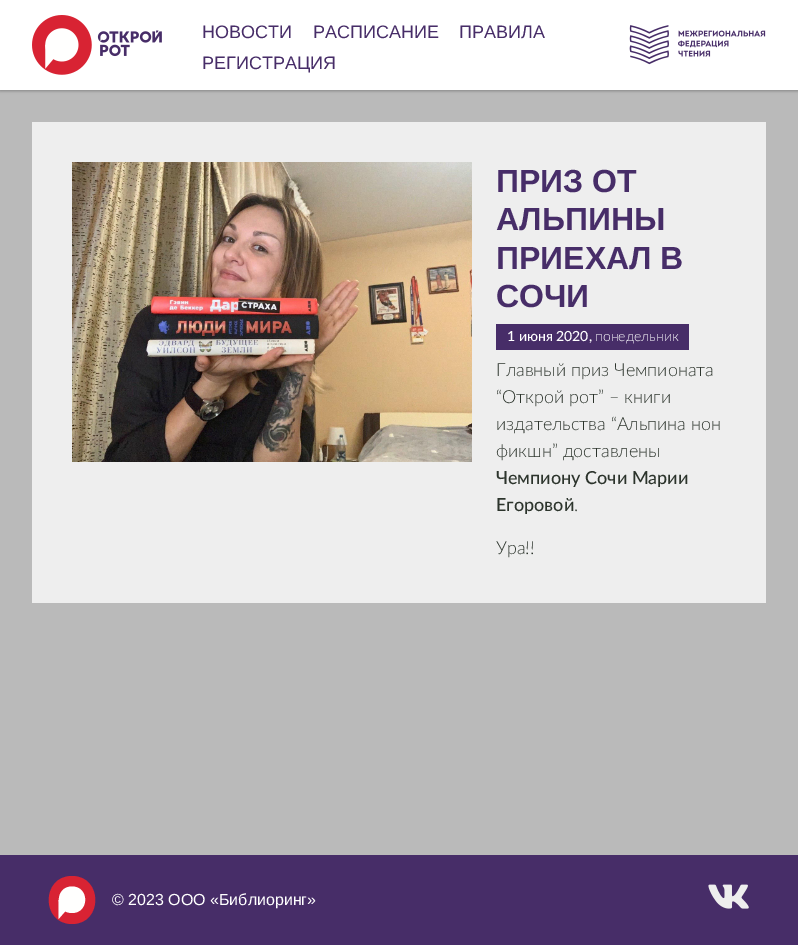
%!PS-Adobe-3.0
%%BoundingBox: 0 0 798 945
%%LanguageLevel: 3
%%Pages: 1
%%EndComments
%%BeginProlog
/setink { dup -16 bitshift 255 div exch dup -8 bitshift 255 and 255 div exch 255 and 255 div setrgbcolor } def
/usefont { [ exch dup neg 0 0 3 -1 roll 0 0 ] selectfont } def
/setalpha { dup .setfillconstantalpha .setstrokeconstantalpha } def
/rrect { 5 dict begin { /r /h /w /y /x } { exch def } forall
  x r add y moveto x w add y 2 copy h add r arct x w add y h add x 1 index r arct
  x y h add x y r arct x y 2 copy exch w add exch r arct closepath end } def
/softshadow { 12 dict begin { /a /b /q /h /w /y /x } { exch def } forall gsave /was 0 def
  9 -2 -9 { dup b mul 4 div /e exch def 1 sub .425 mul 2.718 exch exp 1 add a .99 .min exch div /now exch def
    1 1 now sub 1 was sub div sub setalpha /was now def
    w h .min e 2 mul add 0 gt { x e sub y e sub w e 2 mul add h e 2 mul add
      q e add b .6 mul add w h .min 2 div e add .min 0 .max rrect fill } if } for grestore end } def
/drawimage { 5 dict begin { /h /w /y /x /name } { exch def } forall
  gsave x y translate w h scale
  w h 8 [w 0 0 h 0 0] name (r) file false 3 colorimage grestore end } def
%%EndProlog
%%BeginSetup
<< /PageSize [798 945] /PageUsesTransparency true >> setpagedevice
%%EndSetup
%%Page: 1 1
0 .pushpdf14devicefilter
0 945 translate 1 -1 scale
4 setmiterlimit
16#BABABA setink
0 0 798 945 rectfill
16#000000 setink
0 1 798 90 0 1.5 0.3 softshadow
16#FFFFFF setink
0 0 798 90 rectfill
(img1.raw) 32 15 130 60 drawimage
/LiberationSans-Regular 18 usefont
16#472D68 setink
[
    [(НОВОСТИ) 202 38]
    [(РАСПИСАНИЕ) 313 38]
    [(ПРАВИЛА) 459 38]
    [(РЕГИСТРАЦИЯ) 202 69]
] { aload pop moveto show } forall
(img2.raw) 629 25 137 40 drawimage
16#EEEEEE setink
32 122 734 481 rectfill
(img3.raw) 72 162 400 300 drawimage
/LiberationSans-Bold 32 usefont
16#472D68 setink
[
    [(ПРИЗ ОТ) 496 192]
    [(АЛЬПИНЫ) 496 230]
    [(ПРИЕХАЛ В) 496 269]
    [(СОЧИ) 496 307]
] { aload pop moveto show } forall
496 324 193 26 rectfill
/Lato-Medium 14 usefont
16#FFFFFF setink
507 341 moveto (1 июня 2020,) show
/Lato-Light 14 usefont
595 341 moveto (понедельник) show
/Lato-Light 18 usefont
16#2C342C setink
[
    [(Главный приз Чемпионата) 496 376]
    [(“Открой рот” – книги) 496 403]
    [(издательства “Альпина нон) 496 430]
    [(фикшн” доставлены) 496 457]
] { aload pop moveto show } forall
/Lato-Medium 18 usefont
496 484 moveto (Чемпиону Сочи Марии) show
496 511 moveto (Егоровой) show
/Lato-Light 18 usefont
574 511 moveto (.) show
496 554 moveto (Ура!!) show
16#472D68 setink
0 855 798 90 rectfill
16#D82333 setink
72 876 moveto 103 876 103 924 72 924 curveto 41 924 41 876 72 876 curveto eofill
16#FFFFFE setink
72 886.5 moveto 89.5 886.5 89.5 913 72 913 curveto 54.5 913 54.5 886.5 72 886.5 curveto eofill
58.5 900 moveto 75 900 lineto 58.5 919 lineto closepath eofill
/LiberationSans-Regular 16 usefont
16#FFFFFF setink
112 905 moveto (© 2023 ООО «Библиоринг») show
(img4.raw) 708 884 41 25 drawimage
.poppdf14devicefilter showpage
%%EOF
